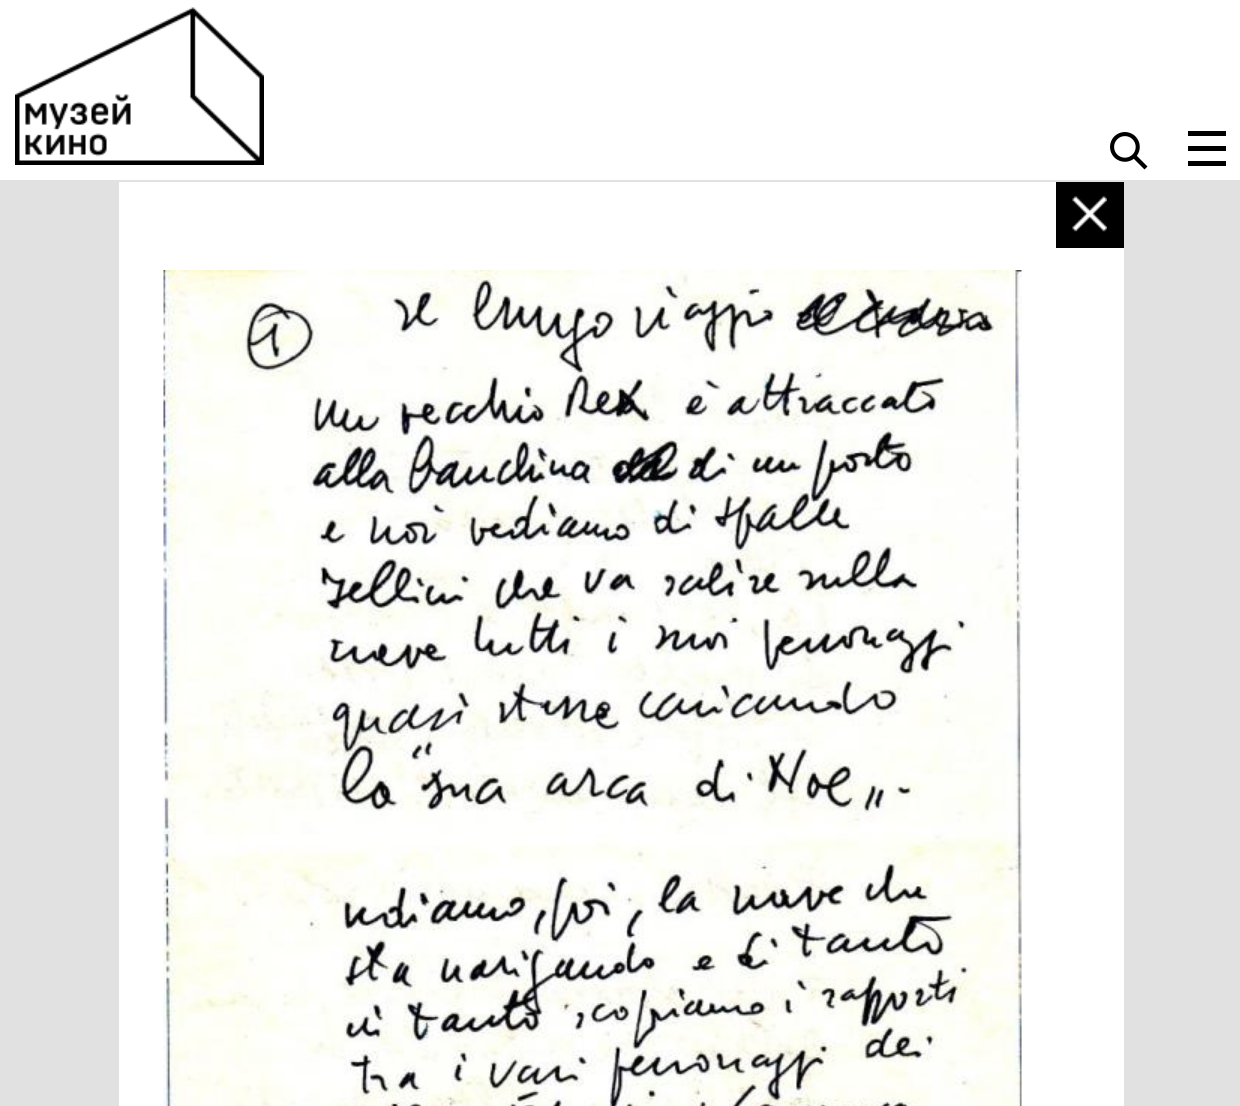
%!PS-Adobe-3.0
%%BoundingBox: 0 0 1240 1106
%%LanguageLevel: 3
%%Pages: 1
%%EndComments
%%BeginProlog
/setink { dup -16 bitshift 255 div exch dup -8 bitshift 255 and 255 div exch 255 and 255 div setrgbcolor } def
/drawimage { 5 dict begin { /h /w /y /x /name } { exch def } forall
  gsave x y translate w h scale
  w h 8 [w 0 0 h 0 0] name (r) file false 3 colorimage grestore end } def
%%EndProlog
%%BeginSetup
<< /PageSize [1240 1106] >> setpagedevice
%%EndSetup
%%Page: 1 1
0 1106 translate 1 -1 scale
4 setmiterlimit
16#FFFFFF setink
0 0 1240 1106 rectfill
(img1.raw) 15 7 249 158 drawimage
(img2.raw) 1110 132 38 38 drawimage
[
    [1188 131 38 5 16#000000]
    [1188 146 38 5 16#000000]
    [1188 161 38 5 16#000000]
    [0 180 1240 926 16#E1E1E1]
    [119 182 1005 924 16#FFFFFF]
    [1056 182 68 66 16#000000]
] { aload pop setink rectfill } forall
(img3.raw) 1072 196 35 36 drawimage
(img4.raw) 163 270 859 836 drawimage
showpage
%%EOF
